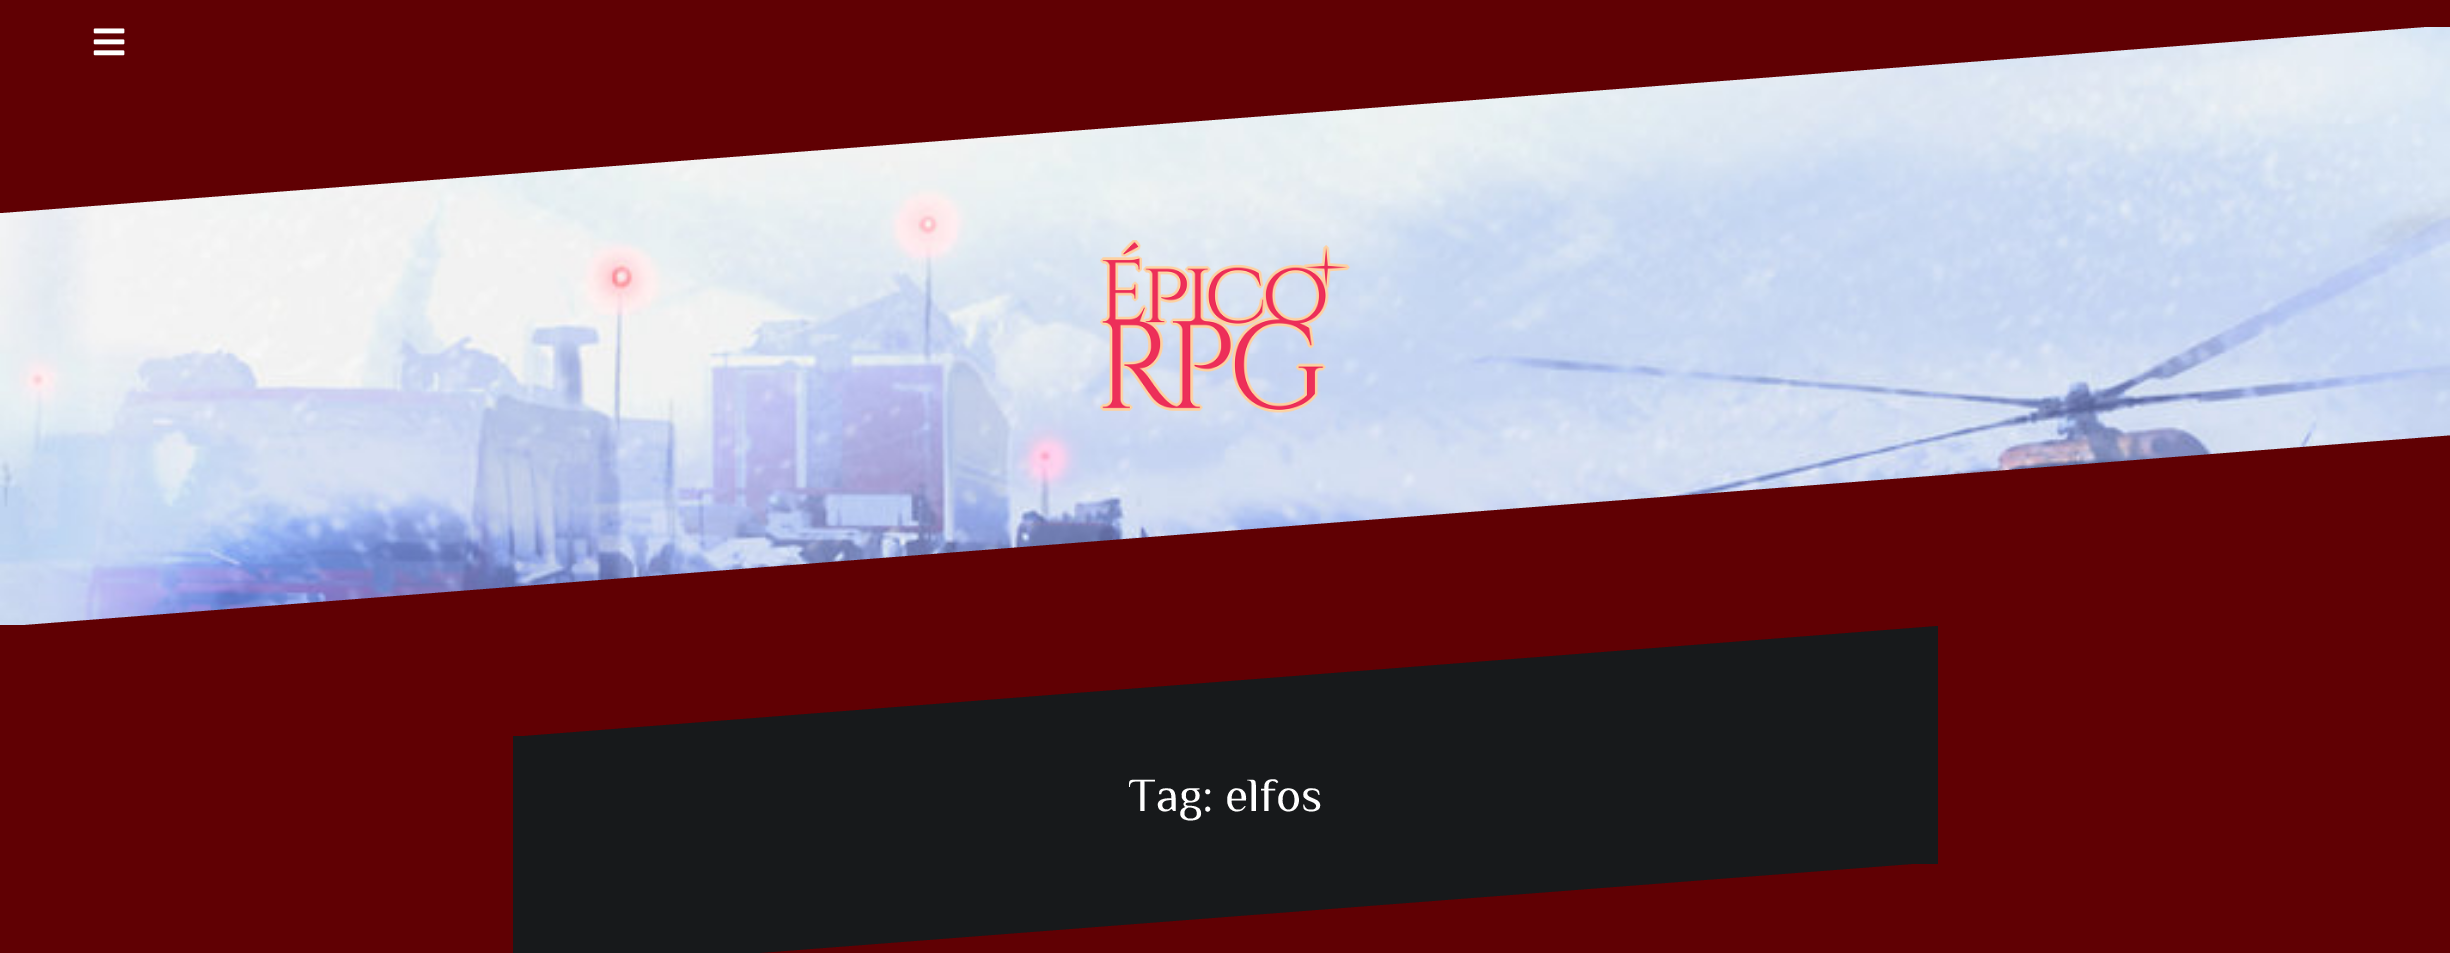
%!PS-Adobe-3.0
%%BoundingBox: 0 0 2450 953
%%LanguageLevel: 3
%%Pages: 1
%%EndComments
%%BeginProlog
/setink { dup -16 bitshift 255 div exch dup -8 bitshift 255 and 255 div exch 255 and 255 div setrgbcolor } def
/usefont { [ exch dup neg 0 0 3 -1 roll 0 0 ] selectfont } def
/drawimage { 5 dict begin { /h /w /y /x /name } { exch def } forall
  gsave x y translate w h scale
  w h 8 [w 0 0 h 0 0] name (r) file false 3 colorimage grestore end } def
%%EndProlog
%%BeginSetup
<< /PageSize [2450 953] >> setpagedevice
%%EndSetup
%%Page: 1 1
0 953 translate 1 -1 scale
4 setmiterlimit
16#600003 setink
0 0 2450 953 rectfill
(img1.raw) 0 27 2450 598 drawimage
0 213 moveto 0 25 lineto 2450 25 lineto fill
(img2.raw) 1100 240 250 173 drawimage
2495 432 moveto 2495 627 lineto 0 627 lineto fill
(img3.raw) 93 28 32 28 drawimage
gsave
513 624 1425 112 rectclip
16#17191B setink
1964 624 moveto 1964 737 lineto 512 737 lineto fill
grestore
16#17191B setink
513 736 1425 128 rectfill
/ElMessiri-Regular 47.5 usefont
16#FFFFFF setink
1128 811 moveto (Tag: elfos) show
gsave
513 863 1425 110 rectclip
16#17191B setink
512 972 moveto 512 862 lineto 1937 862 lineto fill
grestore
showpage
%%EOF
